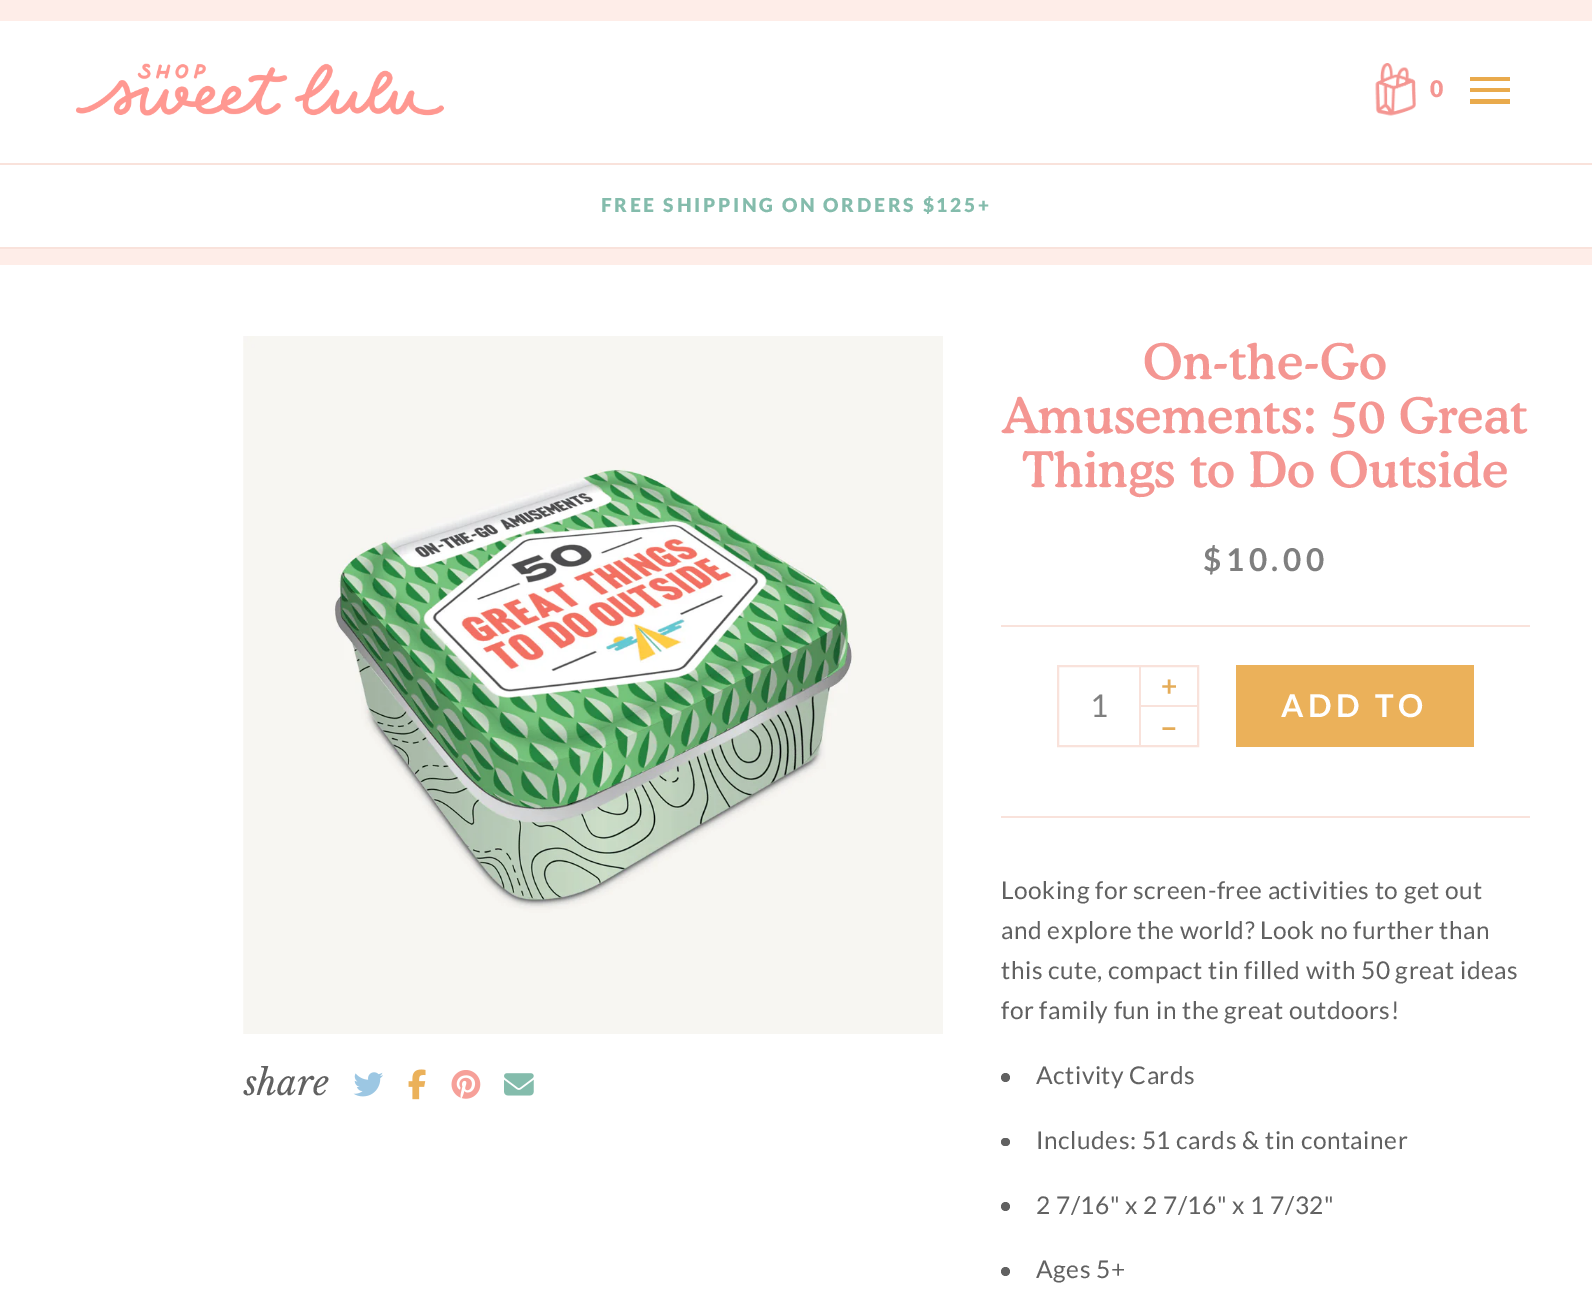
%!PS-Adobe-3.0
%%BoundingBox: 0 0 1592 1297
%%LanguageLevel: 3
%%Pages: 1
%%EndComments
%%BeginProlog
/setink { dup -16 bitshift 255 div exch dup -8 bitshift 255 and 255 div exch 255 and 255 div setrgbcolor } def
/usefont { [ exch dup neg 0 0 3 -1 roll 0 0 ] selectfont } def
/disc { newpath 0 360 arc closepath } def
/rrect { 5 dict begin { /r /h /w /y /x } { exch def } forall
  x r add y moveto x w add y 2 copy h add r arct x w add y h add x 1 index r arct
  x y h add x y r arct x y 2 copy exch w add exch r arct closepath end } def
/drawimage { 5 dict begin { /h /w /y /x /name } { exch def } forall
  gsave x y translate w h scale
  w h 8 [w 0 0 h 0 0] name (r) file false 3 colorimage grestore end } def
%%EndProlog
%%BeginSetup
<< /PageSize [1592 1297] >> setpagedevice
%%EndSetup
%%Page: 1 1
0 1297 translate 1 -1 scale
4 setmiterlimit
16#FEEDE8 setink
0 0 1592 1297 rectfill
16#FFFFFF setink
0 21 1592 226 rectfill
(img1.raw) 76 63 368 53 drawimage
(img2.raw) 1375 63 41 53 drawimage
/Lato-Black 23 usefont
16#F49692 setink
1430 97 moveto 2.7 0 (0) ashow
16#E9AA4C setink
1470 77 moveto 1510 77 lineto 1510 81 lineto 1470 81 lineto closepath 1470 92 moveto 1470 88 lineto 1510 88 lineto 1510 92 lineto closepath 1470 104 moveto 1470 99 lineto 1510 99 lineto 1510 104 lineto closepath fill
16#F9E2DB setink
0 163 1592 2 rectfill
0 247 1592 2 rectfill
/Lato-Black 19.25 usefont
16#84BCAC setink
601 212 moveto 2.7 0 (FREE SHIPPING ON ORDERS $125+) ashow
16#FFFFFF setink
0 265 1592 1032 rectfill
(img3.raw) 243 336 700 698 drawimage
/LibreBaskerville-Italic 35 usefont
16#616161 setink
244 1095 moveto (share) show
(img4.raw) 353 1072 30 25 drawimage
(img5.raw) 408 1069 18 31 drawimage
(img6.raw) 451 1070 30 29 drawimage
(img7.raw) 504 1073 30 23 drawimage
/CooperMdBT-Medium 49 usefont
16#F49692 setink
[
    [(On-the-Go) 1143 379]
    [(Amusements: 50 Great) 1002 433]
    [(Things to Do Outside) 1022 487]
] { aload pop moveto show } forall
/Lato-Bold 31.5 usefont
16#7F7F7F setink
1203 571 moveto 4.5 0 ($10.00) ashow
16#F9E2DB setink
1001 625 529 2 rectfill
1001 816 529 2 rectfill
2 setlinewidth
1058 666 140 80 rectstroke
1139 667 2 79 rectfill
/Lato-Regular 31.5 usefont
16#7F7F7F setink
1090 717 moveto (1) show
/Lato-Bold 28 usefont
16#E5AC58 setink
1161 696 moveto (+) show
16#F9E2DB setink
1141 705 56 2 rectfill
/Lato-Bold 31.5 usefont
16#E5AC58 setink
1160 738 moveto (–) show
16#EBB15A setink
1236 665 238 82 rectfill
16#FFFFFF setink
1281 717 moveto 4.5 0 (ADD TO) ashow
/Lato-Regular 24.5 usefont
16#616161 setink
1001 899 moveto 0.5 0 (Looking for screen-free activities to get out) ashow
1001 939 moveto 0.5 0 (and explore the world? Look no further than) ashow
1001 979 moveto 0.5 0 (this cute, compact tin filled with 50 great ideas) ashow
1001 1019 moveto 0.5 0 (for family fun in the great outdoors!) ashow
1005.5 1077.5 4.5 disc fill
1036 1084 moveto 0.5 0 (Activity Cards) ashow
1001 1138 9 8 4 rrect fill
1036 1149 moveto 0.5 0 (Includes: 51 cards & tin container) ashow
1005.5 1206.5 4.5 disc fill
1036 1214 moveto 0.5 0 (2 7/16" x 2 7/16" x 1 7/32") ashow
1005.5 1271.5 4.5 disc fill
1036 1278 moveto 0.5 0 (Ages 5+) ashow
showpage
%%EOF
